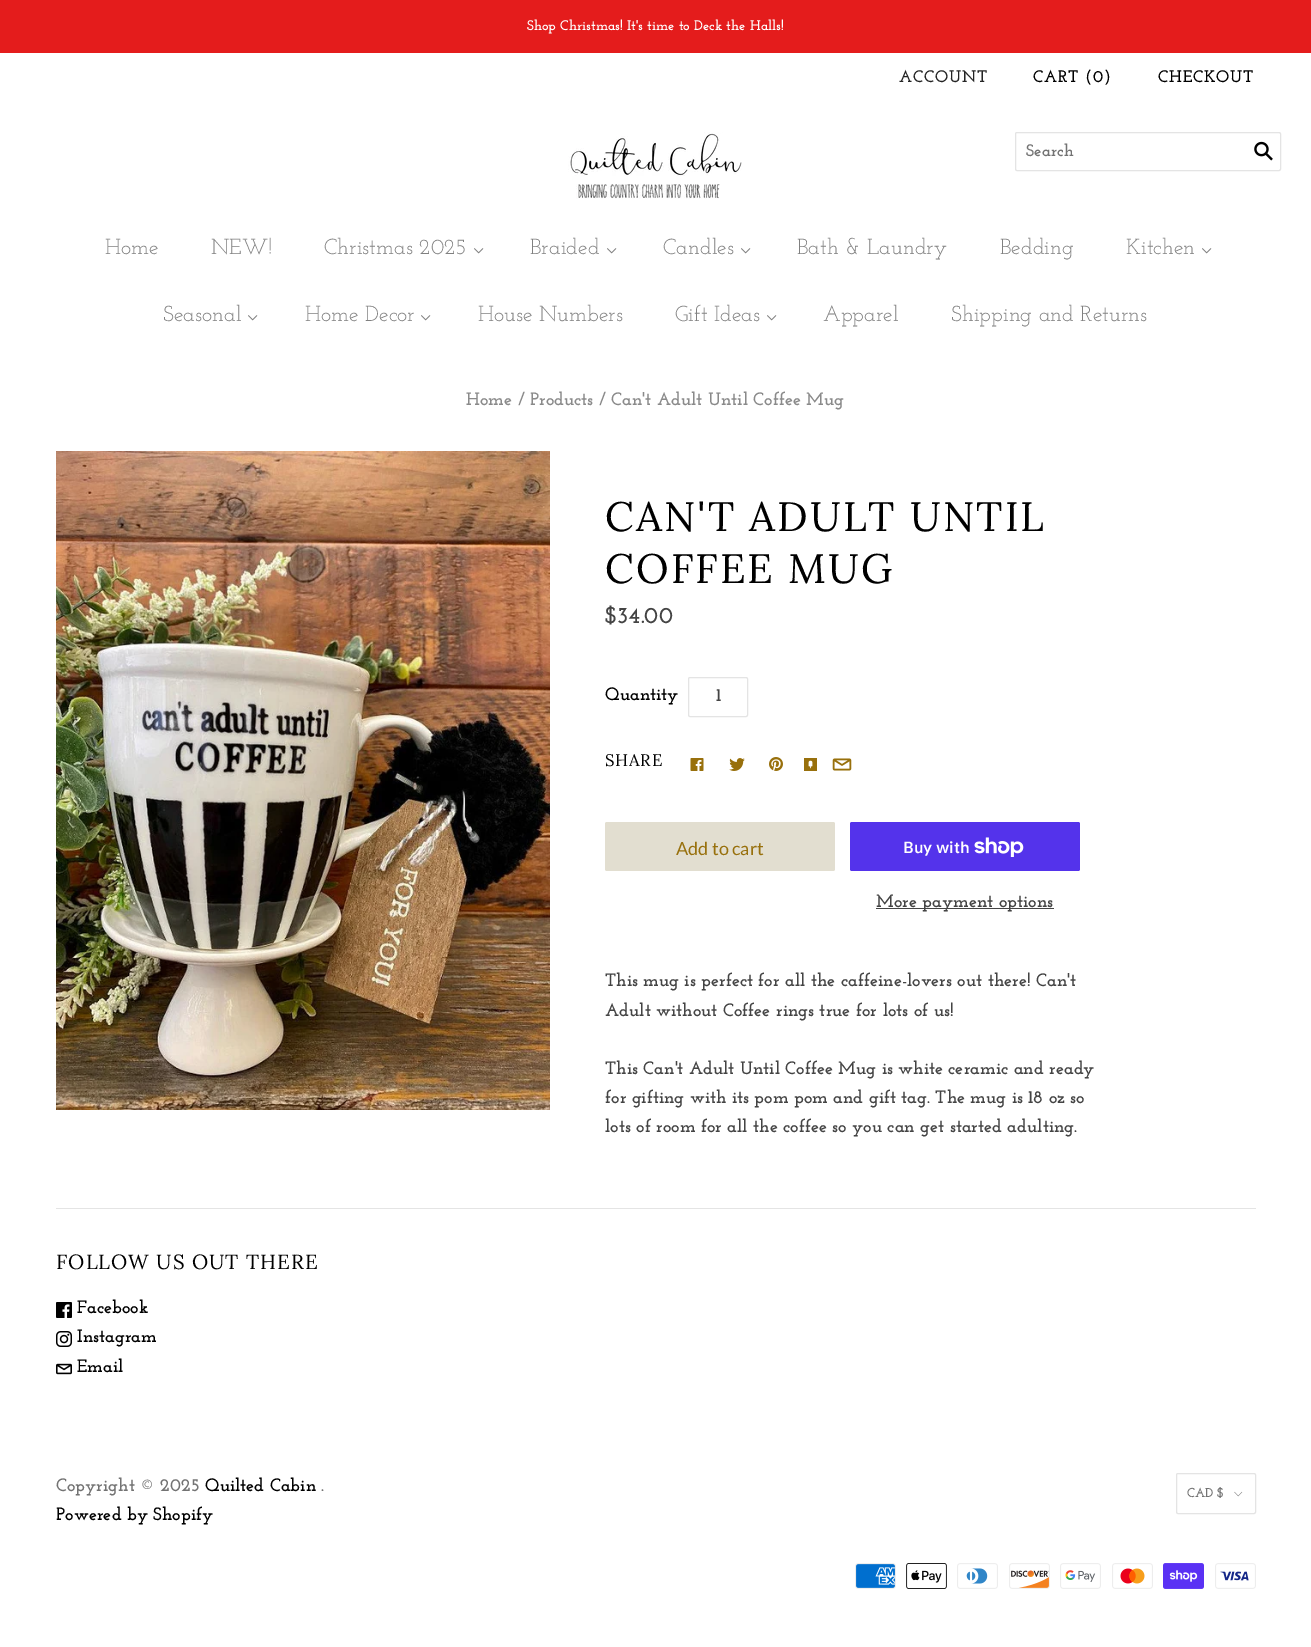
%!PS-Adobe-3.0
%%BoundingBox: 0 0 1311 1647
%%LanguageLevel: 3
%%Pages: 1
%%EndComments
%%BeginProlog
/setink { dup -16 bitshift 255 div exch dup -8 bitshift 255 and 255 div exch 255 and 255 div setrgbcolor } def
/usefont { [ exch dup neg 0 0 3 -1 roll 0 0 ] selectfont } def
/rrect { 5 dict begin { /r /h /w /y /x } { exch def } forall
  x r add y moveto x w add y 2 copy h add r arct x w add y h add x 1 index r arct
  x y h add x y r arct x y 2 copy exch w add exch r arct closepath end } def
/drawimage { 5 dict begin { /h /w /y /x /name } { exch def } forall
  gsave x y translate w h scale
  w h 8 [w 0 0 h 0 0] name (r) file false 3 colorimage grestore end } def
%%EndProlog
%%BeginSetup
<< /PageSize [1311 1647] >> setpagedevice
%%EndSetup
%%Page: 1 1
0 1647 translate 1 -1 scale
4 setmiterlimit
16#FFFFFF setink
0 0 1311 1647 rectfill
16#E41C1C setink
0 0 1311 53 rectfill
/JosefinSlab-Bold 14 usefont
16#FFFFFF setink
527 30 moveto (Shop Christmas! It's time to Deck the Halls!) show
/JosefinSlab-Bold 16.75 usefont
16#242424 setink
899 82 moveto 0.75 0 (ACCOUNT) ashow
16#000000 setink
1033 82 moveto 0.75 0 (CART \(0\)) ashow
1158 82 moveto 0.75 0 (CHECKOUT) ashow
(img1.raw) 568 132 174 67 drawimage
16#E4E4E4 setink
1015.5 132.5 265 38 1.5 rrect stroke
16#737373 setink
1026 156 moveto (Search) show
(img2.raw) 1254 141 19 20 drawimage
/JosefinSlab-Regular 21.75 usefont
16#808080 setink
[
    [(Home) 105 254]
    [(NEW!) 211 254]
    [(Christmas 2025) 324 254]
] { aload pop moveto show } forall
(img3.raw) 474 248 10 6 drawimage
530 254 moveto (Braided) show
(img3.raw) 607 248 10 6 drawimage
663 254 moveto (Candles) show
(img3.raw) 741 248 10 6 drawimage
[
    [(Bath & Laundry) 797 254]
    [(Bedding) 1000 254]
    [(Kitchen) 1126 254]
] { aload pop moveto show } forall
(img3.raw) 1202 248 10 6 drawimage
163 321 moveto (Seasonal) show
(img3.raw) 248 315 10 6 drawimage
305 321 moveto (Home Decor) show
(img3.raw) 421 315 10 6 drawimage
478 321 moveto (House Numbers) show
675 321 moveto (Gift Ideas) show
(img3.raw) 767 315 10 6 drawimage
823 321 moveto (Apparel) show
951 321 moveto (Shipping and Returns) show
/JosefinSlab-Bold 18 usefont
16#8A8A8A setink
466 405 moveto (Home / Products / Can't Adult Until Coffee Mug) show
(img4.raw) 56 451 494 659 drawimage
/Lora-Regular 41.1 usefont
16#000000 setink
605 531 moveto 2.1 0 (CAN'T ADULT UNTIL) ashow
605 583 moveto 2.1 0 (COFFEE MUG) ashow
/JosefinSlab-Bold 23 usefont
16#444444 setink
605 623 moveto ($34.00) show
/JosefinSlab-Bold 18 usefont
16#000000 setink
605 700 moveto (Quantity) show
16#E4E4E4 setink
688.5 677.5 59 39 1.5 rrect stroke
16#444444 setink
716 701 moveto (1) show
/Lora-Regular 16.75 usefont
16#000000 setink
605 766 moveto 0.75 0 (SHARE) ashow
(img5.raw) 690 758 14 13 drawimage
(img6.raw) 729 758 16 13 drawimage
(img7.raw) 769 757 14 14 drawimage
(img8.raw) 804 758 13 13 drawimage
(img9.raw) 832 758 20 13 drawimage
16#E2DED0 setink
605 822 230 49 2 rrect fill
/Lato-Regular 18 usefont
16#98700C setink
676 855 moveto (Add to cart) show
16#5433EB setink
850 822 230 49 2 rrect fill
/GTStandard-SemiBold 16 usefont
16#FFFFFF setink
903 853 moveto (Buy with) show
(img10.raw) 974 837 50 20 drawimage
16#444444 setink
876 908 178 1 rectfill
/JosefinSlab-Bold 18 usefont
[
    [(More payment options) 876 907]
    [(This mug is perfect for all the caffeine-lovers out there! Can't) 605 986]
    [(Adult without Coffee rings true for lots of us!) 605 1016]
    [(This Can't Adult Until Coffee Mug is white ceramic and ready) 605 1074]
    [(for gifting with its pom pom and gift tag. The mug is 18 oz so) 605 1103]
    [(lots of room for all the coffee so you can get started adulting.) 605 1132]
] { aload pop moveto show } forall
16#E4E4E4 setink
56 1208 1200 1 rectfill
/Lora-Regular 20.5 usefont
16#000000 setink
56 1269 moveto 1 0 (FOLLOW US OUT THERE) ashow
(img11.raw) 56 1302 16 16 drawimage
/JosefinSlab-Bold 18 usefont
77 1313 moveto (Facebook) show
(img12.raw) 56 1331 16 16 drawimage
77 1342 moveto (Instagram) show
(img13.raw) 56 1363 16 12 drawimage
77 1372 moveto (Email) show
16#737373 setink
56 1491 moveto (Copyright © 2025) show
16#000000 setink
205 1491 moveto (Quilted Cabin) show
16#737373 setink
321 1491 moveto (.) show
16#000000 setink
56 1520 moveto (Powered by Shopify) show
16#E4E4E4 setink
1176.5 1473.5 79 40 1.5 rrect stroke
/JosefinSlab-Bold 13 usefont
16#737373 setink
1187 1497 moveto (CAD $) show
(img14.raw) 1234 1491 9 6 drawimage
(img15.raw) 855 1563 41 26 drawimage
(img16.raw) 906 1563 41 26 drawimage
(img17.raw) 957 1563 41 26 drawimage
(img18.raw) 1009 1563 41 26 drawimage
(img19.raw) 1060 1563 41 26 drawimage
(img20.raw) 1112 1563 41 26 drawimage
(img21.raw) 1163 1563 41 26 drawimage
(img22.raw) 1215 1563 41 26 drawimage
showpage
%%EOF
